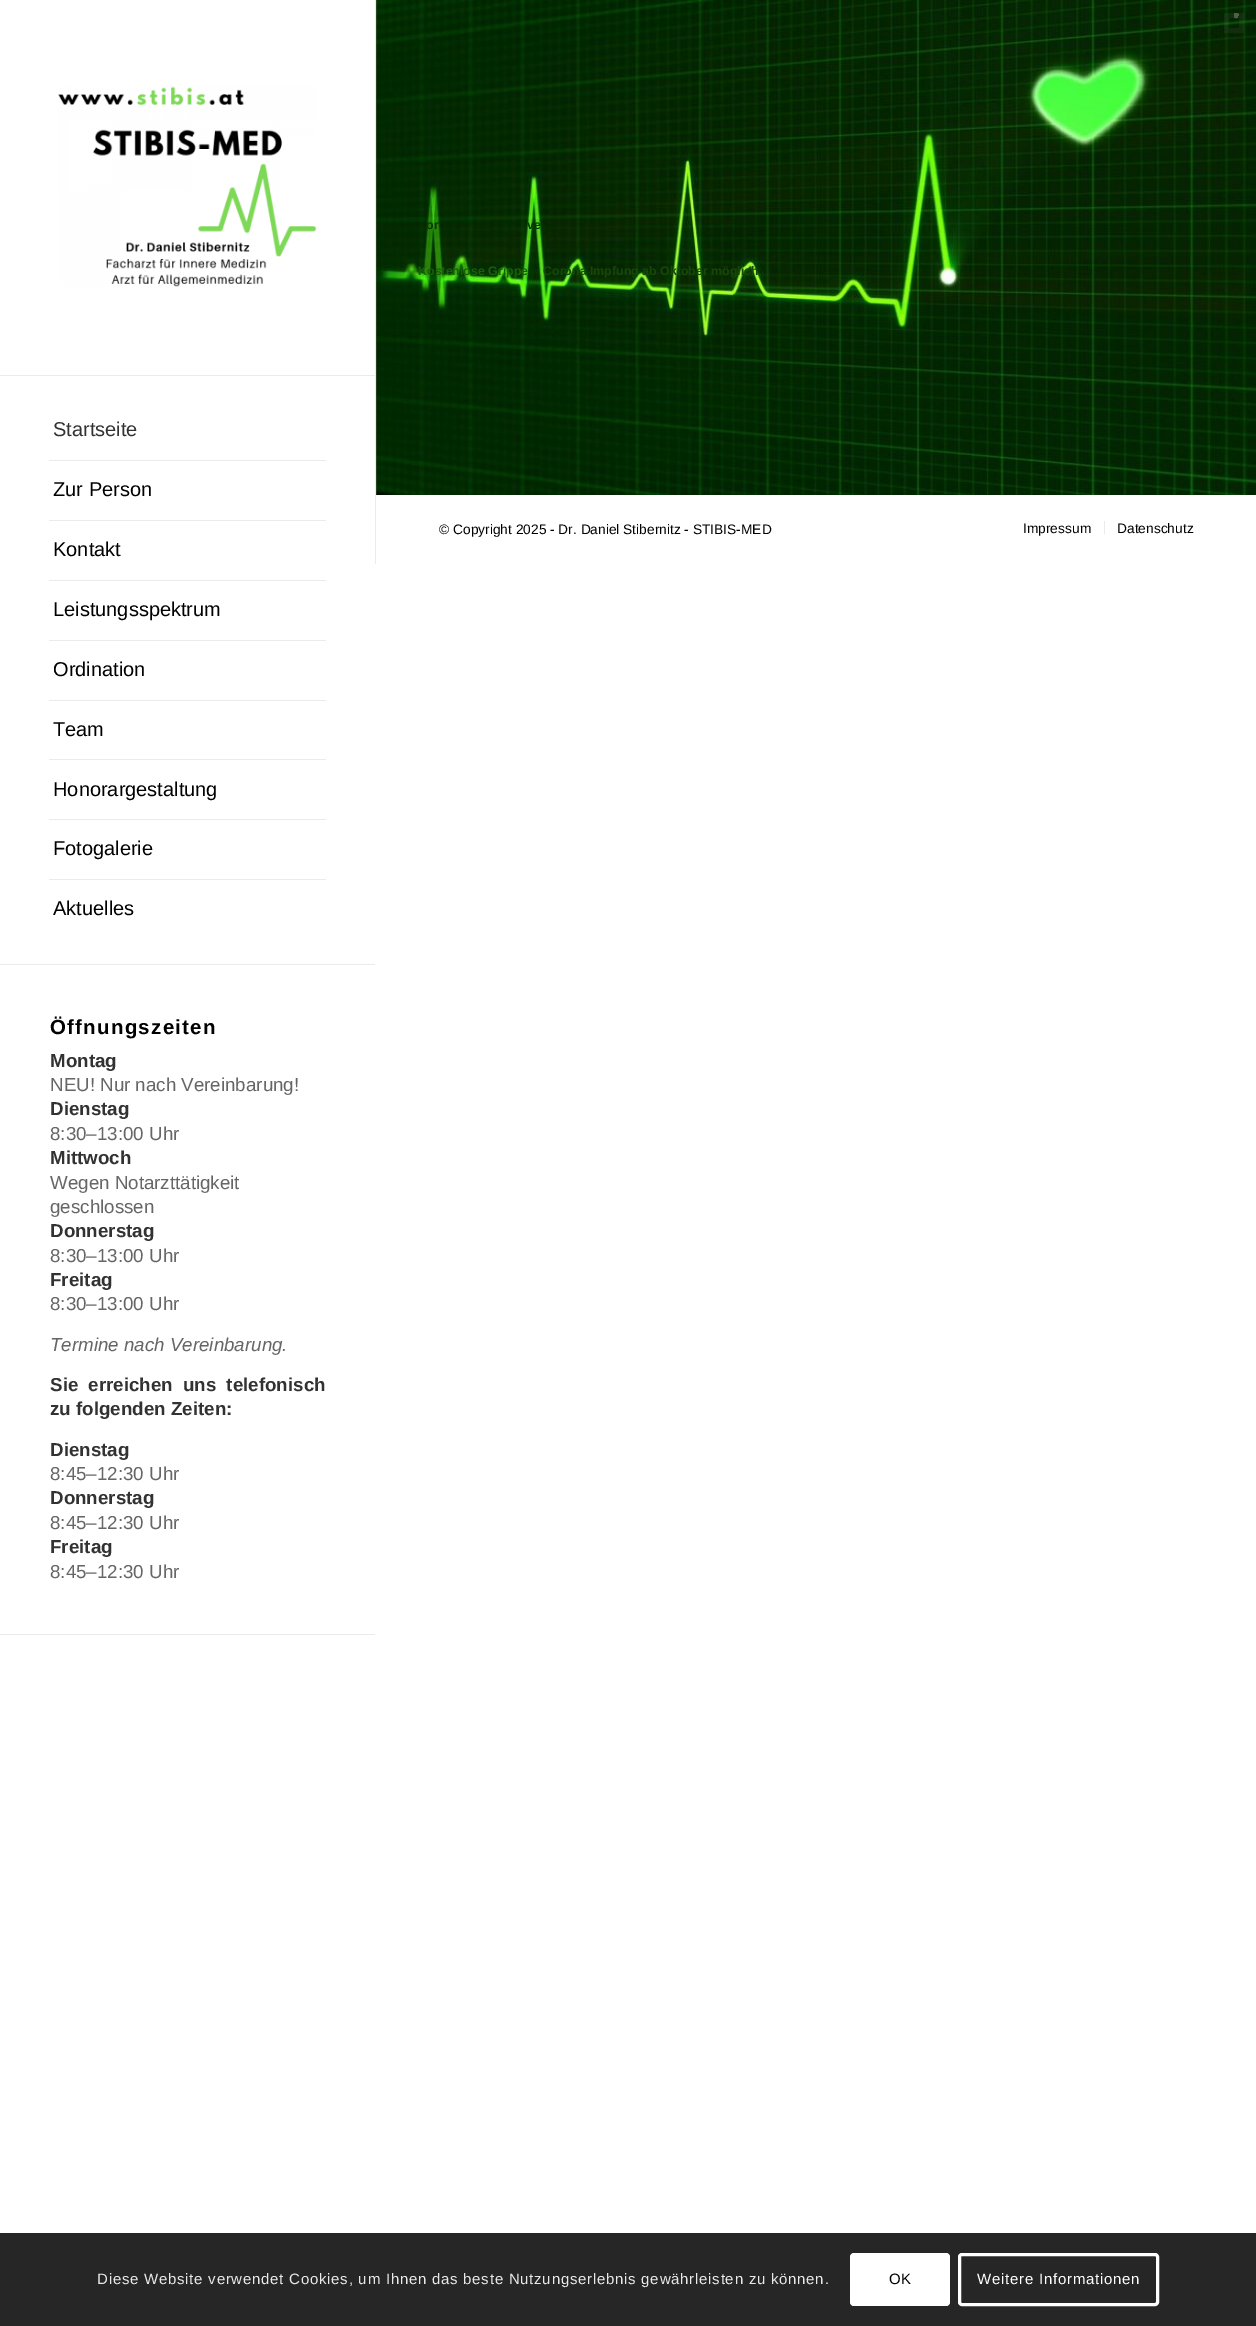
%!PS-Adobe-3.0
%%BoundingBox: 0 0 1256 2326
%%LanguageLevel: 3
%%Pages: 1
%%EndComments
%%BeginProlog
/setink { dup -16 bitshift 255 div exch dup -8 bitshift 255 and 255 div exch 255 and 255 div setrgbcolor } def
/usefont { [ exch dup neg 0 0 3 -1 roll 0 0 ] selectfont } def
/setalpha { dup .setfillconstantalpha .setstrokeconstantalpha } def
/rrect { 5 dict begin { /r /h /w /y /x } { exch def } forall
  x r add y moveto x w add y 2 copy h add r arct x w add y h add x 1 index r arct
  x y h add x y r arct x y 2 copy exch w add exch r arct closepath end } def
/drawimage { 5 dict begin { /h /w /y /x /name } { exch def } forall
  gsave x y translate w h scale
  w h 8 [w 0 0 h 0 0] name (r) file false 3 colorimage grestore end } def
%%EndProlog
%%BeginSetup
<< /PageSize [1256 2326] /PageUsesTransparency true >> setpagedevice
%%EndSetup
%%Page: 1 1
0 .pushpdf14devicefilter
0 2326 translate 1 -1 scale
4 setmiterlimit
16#FFFFFF setink
0 0 1256 2326 rectfill
[
    [375 0 1 564 16#EBEBEB]
    [376 0 1 494 16#48603D]
    [376 494 1 1 16#616161]
] { aload pop setink rectfill } forall
(img1.raw) 376 0 880 495 drawimage
0.05 setalpha
16#EBEBEB setink
5 setlinewidth
1226.5 15.5 15 15 rectstroke
gsave
1234 13 10 20 rectclip
1230 9 moveto 1239 14 lineto 1228.5 31 lineto 1220 26 lineto closepath clip newpath
0.27 setalpha
1237.5 16 moveto 1246 21 1238.5 34 1230 29 curveto 1221.5 24 1229 11 1237.5 16 curveto closepath stroke
grestore
/LiberationSans-Bold 12.4 usefont
1 setalpha
16#0A3803 setink
426 229 moveto (or) show
527 229 moveto (ve) show
16#176007 setink
418 275 moveto (Kostenlose Grippe) show
16#164708 setink
543 275 moveto (Corona Impfung ab Oktober möglich) show
/LiberationSans-Regular 13.75 usefont
16#000000 setink
439 534 moveto (© Copyright 2025 - Dr. Daniel Stibernitz - STIBIS-MED) show
1023 533 moveto (Impressum) show
16#EBEBEB setink
1104 521 1 13 rectfill
16#000000 setink
1117 533 moveto (Datenschutz) show
16#EBEBEB setink
0 1634 375 1 rectfill
0 375 375 1 rectfill
(img2.raw) 58 86 259 201 drawimage
49 460 277 1 rectfill
/LiberationSans-Regular 20 usefont
16#333233 setink
53 436 moveto (Startseite) show
16#EBEBEB setink
49 520 277 1 rectfill
16#000000 setink
53 496 moveto (Zur Person) show
16#EBEBEB setink
49 580 277 1 rectfill
16#000000 setink
53 556 moveto (Kontakt) show
16#EBEBEB setink
49 640 277 1 rectfill
16#000000 setink
53 616 moveto (Leistungsspektrum) show
16#EBEBEB setink
49 700 277 1 rectfill
16#000000 setink
53 676 moveto (Ordination) show
16#EBEBEB setink
49 759 277 1 rectfill
16#000000 setink
53 736 moveto (Team) show
16#EBEBEB setink
49 819 277 1 rectfill
16#000000 setink
53 796 moveto (Honorargestaltung) show
16#EBEBEB setink
49 879 277 1 rectfill
16#000000 setink
53 855 moveto (Fotogalerie) show
53 915 moveto (Aktuelles) show
16#EBEBEB setink
0 964 375 1 rectfill
/LiberationSans-Bold 20.5 usefont
16#000000 setink
50 1034 moveto 1.25 0 (Öffnungszeiten) ashow
/LiberationSans-Bold 18.75 usefont
16#333233 setink
50 1067 moveto (Montag) show
/LiberationSans-Regular 18.75 usefont
16#666666 setink
50 1091 moveto (NEU! Nur nach Vereinbarung!) show
/LiberationSans-Bold 18.75 usefont
16#333233 setink
50 1115 moveto (Dienstag) show
/LiberationSans-Regular 18.75 usefont
16#666666 setink
50 1140 moveto (8:30–13:00 Uhr) show
/LiberationSans-Bold 18.75 usefont
16#333233 setink
50 1164 moveto (Mittwoch) show
/LiberationSans-Regular 18.75 usefont
16#666666 setink
50 1189 moveto (Wegen Notarzttätigkeit) show
50 1213 moveto (geschlossen) show
/LiberationSans-Bold 18.75 usefont
16#333233 setink
50 1237 moveto (Donnerstag) show
/LiberationSans-Regular 18.75 usefont
16#666666 setink
50 1262 moveto (8:30–13:00 Uhr) show
/LiberationSans-Bold 18.75 usefont
16#333233 setink
50 1286 moveto (Freitag) show
/LiberationSans-Regular 18.75 usefont
16#666666 setink
50 1310 moveto (8:30–13:00 Uhr) show
/LiberationSans-Italic 18.75 usefont
50 1351 moveto (Termine nach Vereinbarung.) show
/LiberationSans-Bold 18.75 usefont
16#333233 setink
50 1391 moveto 5 0 32 (Sie erreichen uns telefonisch) widthshow
50 1415 moveto (zu folgenden Zeiten:) show
50 1456 moveto (Dienstag) show
/LiberationSans-Regular 18.75 usefont
16#666666 setink
50 1480 moveto (8:45–12:30 Uhr) show
/LiberationSans-Bold 18.75 usefont
16#333233 setink
50 1504 moveto (Donnerstag) show
/LiberationSans-Regular 18.75 usefont
16#666666 setink
50 1529 moveto (8:45–12:30 Uhr) show
/LiberationSans-Bold 18.75 usefont
16#333233 setink
50 1553 moveto (Freitag) show
/LiberationSans-Regular 18.75 usefont
16#666666 setink
50 1578 moveto (8:45–12:30 Uhr) show
16#262626 setink
0 2233 1256 93 rectfill
/LiberationSans-Regular 15 usefont
16#E9E9E9 setink
97 2284 moveto 0.75 0 (Diese Website verwendet Cookies, um Ihnen das beste Nutzungserlebnis gewährleisten zu können.) ashow
16#FFFFFF setink
850 2253 100 53 4 rrect fill
16#000000 setink
889 2284 moveto 0.75 0 (OK) ashow
16#FFFFFF setink
3 setlinewidth
959.5 2254.5 198 50 2.5 rrect stroke
977 2284 moveto 0.75 0 (Weitere Informationen) ashow
.poppdf14devicefilter showpage
%%EOF
